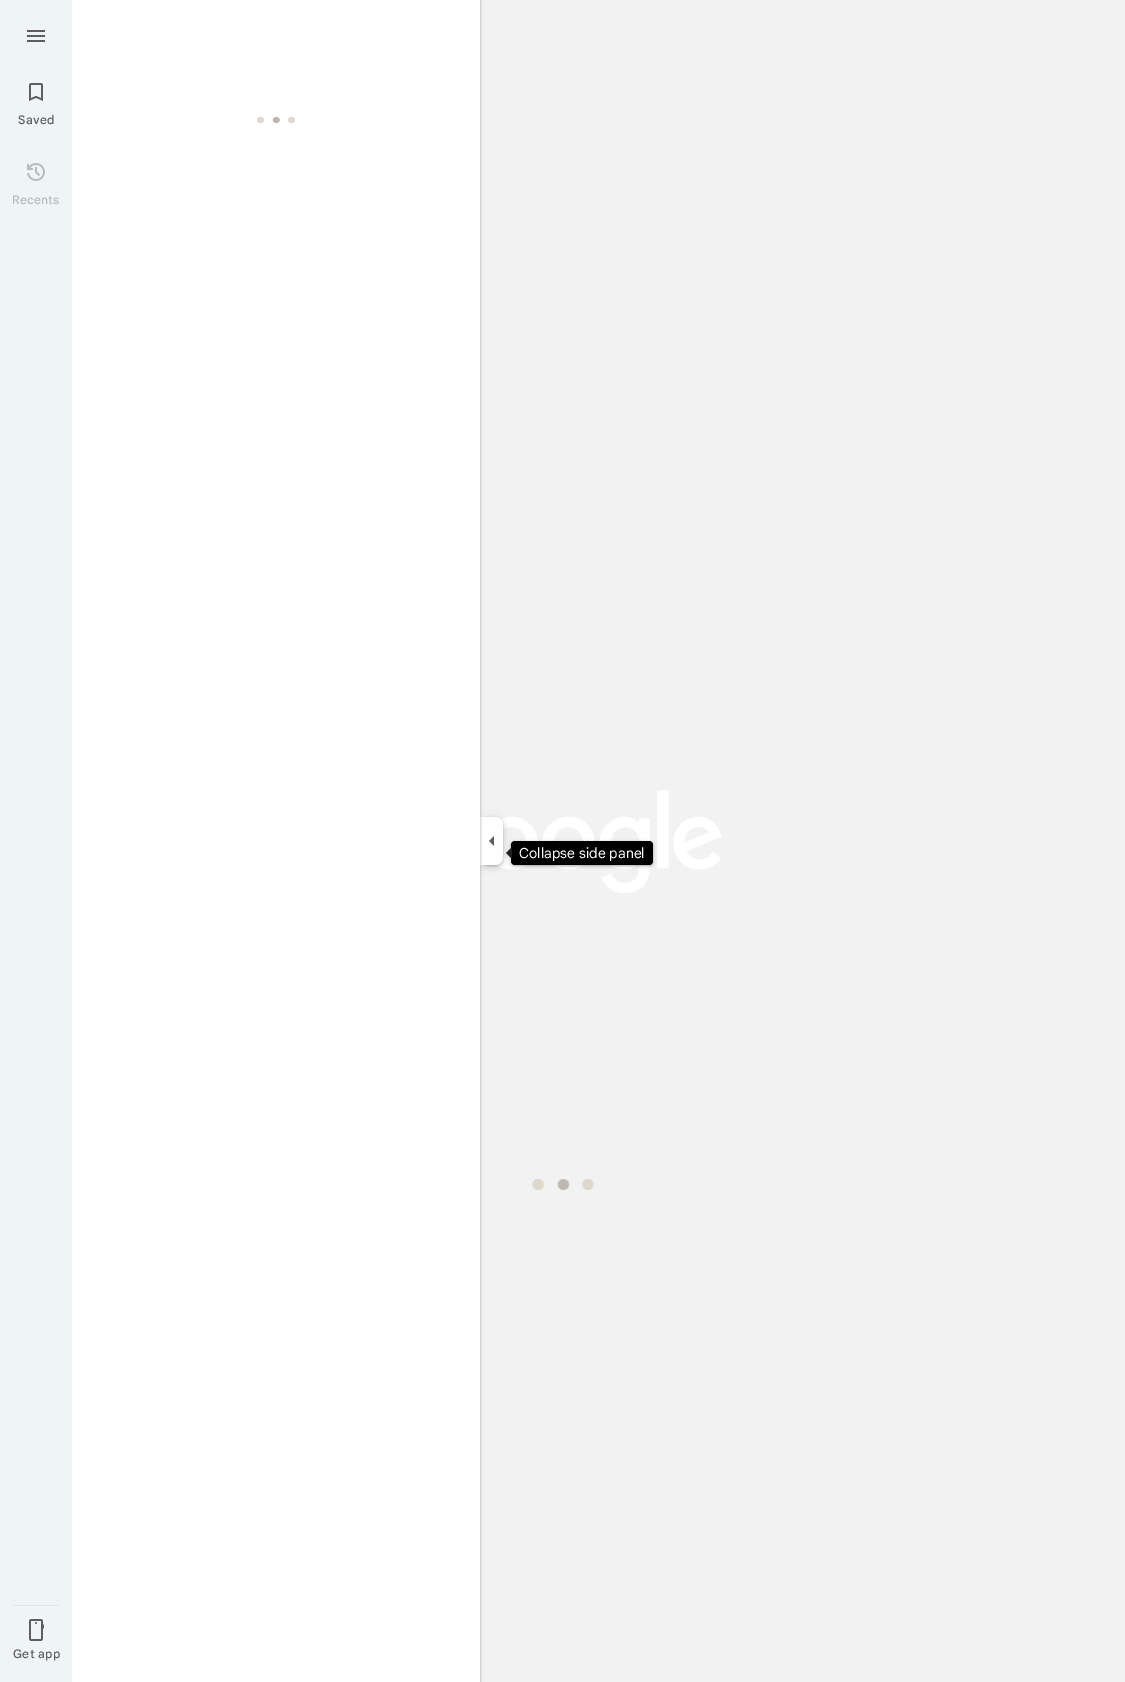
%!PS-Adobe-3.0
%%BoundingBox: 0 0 1125 1682
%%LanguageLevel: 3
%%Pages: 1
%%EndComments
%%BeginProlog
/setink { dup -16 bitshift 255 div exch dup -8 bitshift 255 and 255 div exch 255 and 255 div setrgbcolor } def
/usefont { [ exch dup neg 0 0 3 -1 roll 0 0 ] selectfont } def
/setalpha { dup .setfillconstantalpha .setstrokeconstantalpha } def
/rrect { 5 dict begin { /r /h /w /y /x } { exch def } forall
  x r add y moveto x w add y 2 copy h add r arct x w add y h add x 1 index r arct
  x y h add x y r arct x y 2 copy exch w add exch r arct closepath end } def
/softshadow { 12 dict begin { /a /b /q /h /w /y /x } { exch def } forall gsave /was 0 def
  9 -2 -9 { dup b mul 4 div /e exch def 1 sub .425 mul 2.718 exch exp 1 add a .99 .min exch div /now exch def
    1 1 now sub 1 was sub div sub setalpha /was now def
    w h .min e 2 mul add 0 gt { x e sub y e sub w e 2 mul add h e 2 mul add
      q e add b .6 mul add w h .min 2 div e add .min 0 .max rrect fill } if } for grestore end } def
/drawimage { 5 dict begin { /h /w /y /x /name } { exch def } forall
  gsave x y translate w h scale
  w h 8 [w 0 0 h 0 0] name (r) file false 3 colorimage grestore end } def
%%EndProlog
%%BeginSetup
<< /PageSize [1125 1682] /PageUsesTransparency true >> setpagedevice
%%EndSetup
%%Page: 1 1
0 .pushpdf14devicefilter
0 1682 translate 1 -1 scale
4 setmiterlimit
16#F2F2F2 setink
0 0 1125 1682 rectfill
(img6.raw) 495 790 227 103 drawimage
16#3C4043 setink
478 817 27 52 10 3 0.15 softshadow
480 818 23 48 8 1 0.3 softshadow
16#FFFFFF setink
480 817 moveto 495 817 lineto 499.5 817 503 820.5 503 825 curveto 503 857 lineto 503 861.5 499.5 865 495 865 curveto 480 865 lineto closepath fill
16#3C4043 setink
71 0 410 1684 0 1.5 0.15 softshadow
72 1 408 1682 0 1 0.3 softshadow
16#EFF5F6 setink
0 0 72 1682 rectfill
(img1.raw) 27 30 18 12 drawimage
(img2.raw) 29 83 14 18 drawimage
/GoogleSans-Medium 12 usefont
16#5E5E5E setink
18 124 moveto 0.25 0 (Saved) ashow
(img3.raw) 27 163 18 18 drawimage
16#B8BCBC setink
12 204 moveto 0.25 0 (Recents) ashow
16#E3E3E3 setink
14 1605 44 1 rectfill
(img4.raw) 29 1619 15 22 drawimage
16#5E5E5E setink
13 1658 moveto 0.25 0 (Get app) ashow
16#FFFFFF setink
72 0 408 1682 rectfill
(img5.raw) 257 116 38 8 drawimage
16#5E5E5E setink
494 846 moveto 489 841 lineto 494 836 lineto closepath fill
16#3C4043 setink
510 841 144 26 5 1.5 0.15 softshadow
511 842 142 24 4 1 0.3 softshadow
16#000000 setink
511 841 142 24 4 rrect fill
16#1F1F1F setink
512 847 moveto 512 859 lineto 506 853 lineto closepath fill
/GoogleSans-Regular 14 usefont
16#FFFFFF setink
519 858 moveto 0.1 0 (Collapse side panel) ashow
(img7.raw) 532 1179 62 11 drawimage
.poppdf14devicefilter showpage
%%EOF
